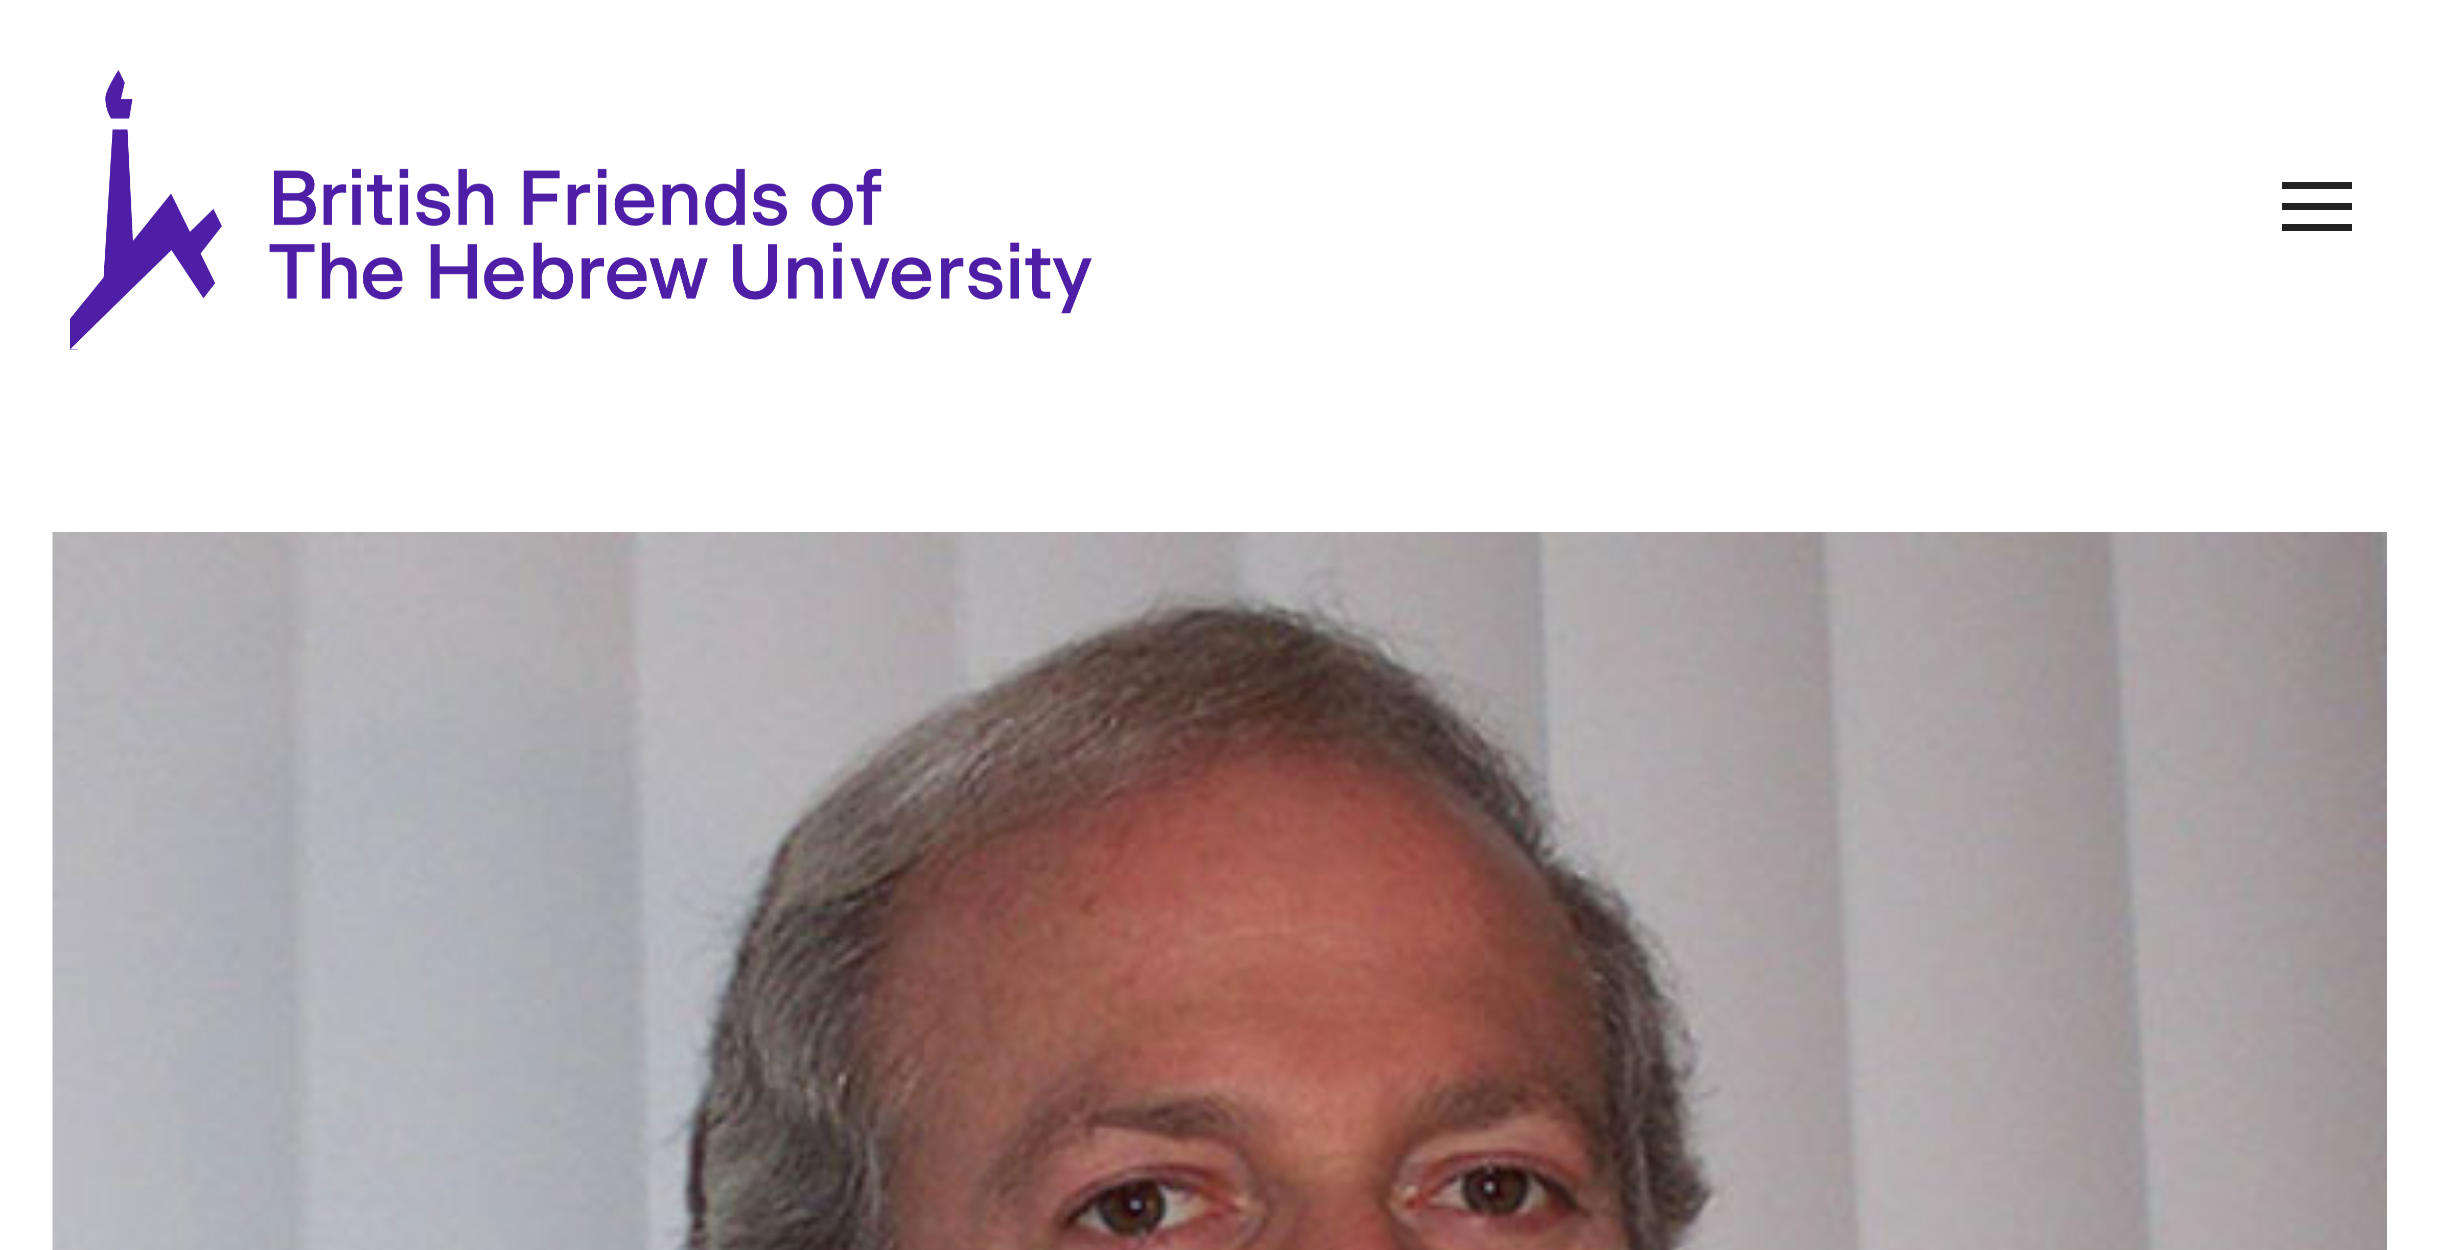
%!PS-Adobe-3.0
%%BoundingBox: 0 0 2438 1250
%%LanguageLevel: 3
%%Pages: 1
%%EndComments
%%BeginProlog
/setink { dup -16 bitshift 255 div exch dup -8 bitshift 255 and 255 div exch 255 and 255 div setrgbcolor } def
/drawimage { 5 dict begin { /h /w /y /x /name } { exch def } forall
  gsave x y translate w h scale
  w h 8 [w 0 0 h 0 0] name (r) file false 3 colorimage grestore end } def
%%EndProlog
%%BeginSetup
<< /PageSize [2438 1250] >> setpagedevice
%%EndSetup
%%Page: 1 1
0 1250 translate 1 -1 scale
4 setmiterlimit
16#FFFFFF setink
0 0 2438 1250 rectfill
(img1.raw) 70 70 1022 280 drawimage
[
    [2282 203 70 7 16#222222]
    [2282 182 70 7 16#222222]
    [2282 224 70 7 16#222222]
] { aload pop setink rectfill } forall
(img2.raw) 52 532 2335 718 drawimage
showpage
%%EOF
